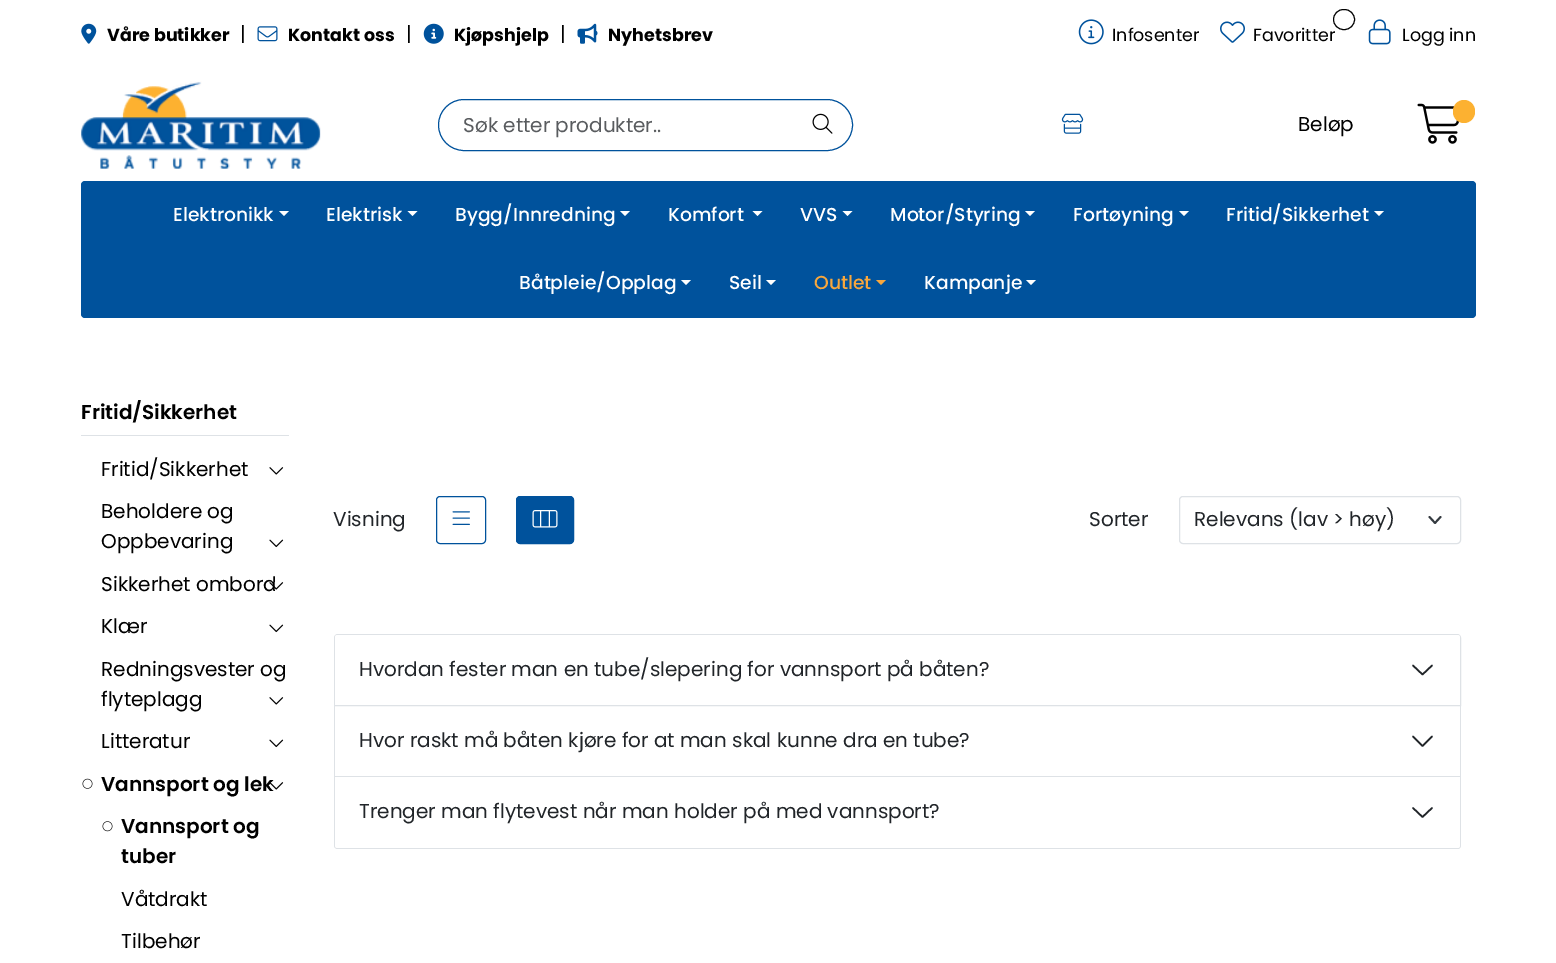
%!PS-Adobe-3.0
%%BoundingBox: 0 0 1556 963
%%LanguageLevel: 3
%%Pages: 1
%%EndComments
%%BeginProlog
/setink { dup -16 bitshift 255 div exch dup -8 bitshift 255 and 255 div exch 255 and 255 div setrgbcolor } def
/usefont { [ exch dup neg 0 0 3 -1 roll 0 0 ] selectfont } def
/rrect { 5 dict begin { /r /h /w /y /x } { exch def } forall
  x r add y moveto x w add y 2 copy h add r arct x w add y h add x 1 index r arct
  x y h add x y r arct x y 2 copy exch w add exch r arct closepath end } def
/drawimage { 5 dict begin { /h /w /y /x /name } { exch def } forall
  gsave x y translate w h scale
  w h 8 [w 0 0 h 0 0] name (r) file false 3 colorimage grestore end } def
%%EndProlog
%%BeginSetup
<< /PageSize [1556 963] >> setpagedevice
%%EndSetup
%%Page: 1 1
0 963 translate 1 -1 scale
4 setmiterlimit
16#FFFFFF setink
0 0 1556 963 rectfill
(img1.raw) 81 23 16 21 drawimage
/Poppins-Bold 17.5 usefont
16#000000 setink
107 41 moveto (Våre butikker) show
/Poppins-Regular 20 usefont
240 41 moveto (|) show
(img2.raw) 257 26 21 16 drawimage
/Poppins-Bold 17.5 usefont
288 41 moveto (Kontakt oss) show
/Poppins-Regular 20 usefont
406 41 moveto (|) show
(img3.raw) 423 23 21 21 drawimage
/Poppins-Bold 17.5 usefont
454 41 moveto (Kjøpshjelp) show
/Poppins-Regular 20 usefont
560 41 moveto (|) show
(img4.raw) 577 23 21 21 drawimage
/Poppins-Bold 17.5 usefont
608 41 moveto (Nyhetsbrev) show
(img5.raw) 1078 19 26 26 drawimage
/Poppins-Regular 17.5 usefont
1112 41 moveto (Infosenter) show
1333.5 9.5 21 20 10 rrect stroke
(img6.raw) 1220 21 25 22 drawimage
1253 41 moveto (Favoritter) show
(img7.raw) 1368 19 23 26 drawimage
1402 41 moveto (Logg inn) show
(img8.raw) 81 81 240 88 drawimage
16#00529C setink
438.5 99.5 414 51 25.5 rrect stroke
/Poppins-Regular 20 usefont
16#595C5F setink
463 132 moveto (Søk etter produkter..) show
(img9.raw) 812 113 21 21 drawimage
(img10.raw) 1061 113 23 21 drawimage
16#000000 setink
1298 131 moveto (Beløp) show
(img11.raw) 1417 103 43 41 drawimage
16#FCB131 setink
1453 100 22 23 11 rrect fill
16#00529C setink
81 181 1395 137 4 rrect fill
/Poppins-Medium 18.75 usefont
16#FFFFFF setink
173 221 moveto (Elektronikk) show
279 211 moveto 289 211 lineto 284 216 lineto closepath fill
326 221 moveto (Elektrisk) show
407.5 211 moveto 417.5 211 lineto 412.5 216 lineto closepath fill
455 221 moveto (Bygg/Innredning) show
620 211 moveto 630 211 lineto 625 216 lineto closepath fill
668 221 moveto (Komfort) show
752.5 211 moveto 762.5 211 lineto 757.5 216 lineto closepath fill
800 221 moveto (VVS) show
842.5 211 moveto 852.5 211 lineto 847.5 216 lineto closepath fill
890 221 moveto (Motor/Styring) show
1025 211 moveto 1035 211 lineto 1030 216 lineto closepath fill
1073 221 moveto (Fortøyning) show
1179 211 moveto 1189 211 lineto 1184 216 lineto closepath fill
1226 221 moveto (Fritid/Sikkerhet) show
1374 211 moveto 1384 211 lineto 1379 216 lineto closepath fill
519 289 moveto (Båtpleie/Opplag) show
681 280 moveto 691 280 lineto 686 285 lineto closepath fill
729 289 moveto (Seil) show
766 280 moveto 776 280 lineto 771 285 lineto closepath fill
16#F8A73C setink
814 289 moveto (Outlet) show
876 280 moveto 886 280 lineto 881 285 lineto closepath fill
16#FFFFFF setink
924 289 moveto (Kampanje) show
1026 280 moveto 1036 280 lineto 1031 285 lineto closepath fill
16#DEE2E6 setink
81 435 208 1 rectfill
/Poppins-SemiBold 20 usefont
16#000000 setink
81 419 moveto (Fritid/Sikkerhet) show
/Poppins-Regular 20 usefont
101 476 moveto (Fritid/Sikkerhet) show
(img12.raw) 269 467 15 8 drawimage
101 518 moveto (Beholdere og) show
101 548 moveto (Oppbevaring) show
(img13.raw) 269 539 15 9 drawimage
101 591 moveto (Sikkerhet ombord) show
(img14.raw) 269 582 15 8 drawimage
101 633 moveto (Klær) show
(img13.raw) 269 624 15 9 drawimage
101 676 moveto (Redningsvester og) show
101 706 moveto (flyteplagg) show
(img12.raw) 269 697 15 8 drawimage
101 748 moveto (Litteratur) show
(img13.raw) 269 739 15 9 drawimage
(img15.raw) 82 778 11 11 drawimage
/Poppins-SemiBold 20 usefont
101 791 moveto (Vannsport og lek) show
(img16.raw) 270 782 14 8 drawimage
(img17.raw) 102 821 11 11 drawimage
121 833 moveto (Vannsport og) show
121 863 moveto (tuber) show
/Poppins-Regular 20 usefont
121 906 moveto (Våtdrakt) show
121 948 moveto (Tilbehør) show
16#212529 setink
333 526 moveto (Visning) show
16#00529C setink
436.5 496.5 49 47 3.5 rrect stroke
(img18.raw) 452 511 18 14 drawimage
516.5 496.5 57 47 3.5 rrect gsave fill grestore
stroke
(img19.raw) 532 510 26 18 drawimage
16#212529 setink
1089 526 moveto (Sorter) show
16#343A40 setink
1.9 setlinewidth
1 setlinecap
1 setlinejoin
1429.5 517 moveto 1435 523 lineto 1440.5 517 lineto stroke
16#DEE2E6 setink
1 setlinewidth
0 setlinecap
0 setlinejoin
1179.5 496.5 281 47 3.5 rrect stroke
16#212529 setink
1194 526 moveto (Relevans \(lav > høy\)) show
16#DEE2E6 setink
338 634.5 moveto 1457 634.5 lineto 1459 634.5 1460.5 636 1460.5 638 curveto 1460.5 705.5 lineto 334.5 705.5 lineto 334.5 638 lineto 334.5 636 336 634.5 338 634.5 curveto closepath stroke
16#FFFFFF setink
337.5 635 moveto 1457.5 635 lineto 1459 635 1460 636 1460 637.5 curveto 1460 705 lineto 335 705 lineto 335 637.5 lineto 335 636 336 635 337.5 635 curveto closepath fill
16#212529 setink
359 676 moveto (Hvordan fester man en tube/slepering for vannsport på båten?) show
1.6 setlinewidth
1 setlinecap
1 setlinejoin
1413 665.5 moveto 1422.5 674.5 lineto 1432 665.5 lineto stroke
[
    [1460 706 1 72 16#DEE2E6]
    [334 776 1127 1 16#DEE2E6]
    [334 706 1 72 16#DEE2E6]
] { aload pop setink rectfill } forall
16#212529 setink
359 747 moveto (Hvor raskt må båten kjøre for at man skal kunne dra en tube?) show
1413 736.5 moveto 1422.5 746 lineto 1432 736.5 lineto stroke
16#DEE2E6 setink
334 778 moveto 1461 778 lineto 1461 845 lineto 1461 847 1460 849 1458 849 curveto 338 849 lineto 335 849 334 847 334 845 curveto closepath 335 778 moveto 1460 778 lineto 1460 845 lineto 1460 846 1459 848 1458 848 curveto 338 848 lineto 336 848 335 846 335 845 curveto closepath eofill
16#FFFFFF setink
335 778 moveto 1460 778 lineto 1460 845.5 lineto 1460 847 1459 848 1457.5 848 curveto 337.5 848 lineto 336 848 335 847 335 845.5 curveto closepath fill
16#212529 setink
359 818 moveto (Trenger man flytevest når man holder på med vannsport?) show
1413 808 moveto 1422.5 817 lineto 1432 808 lineto stroke
showpage
%%EOF
